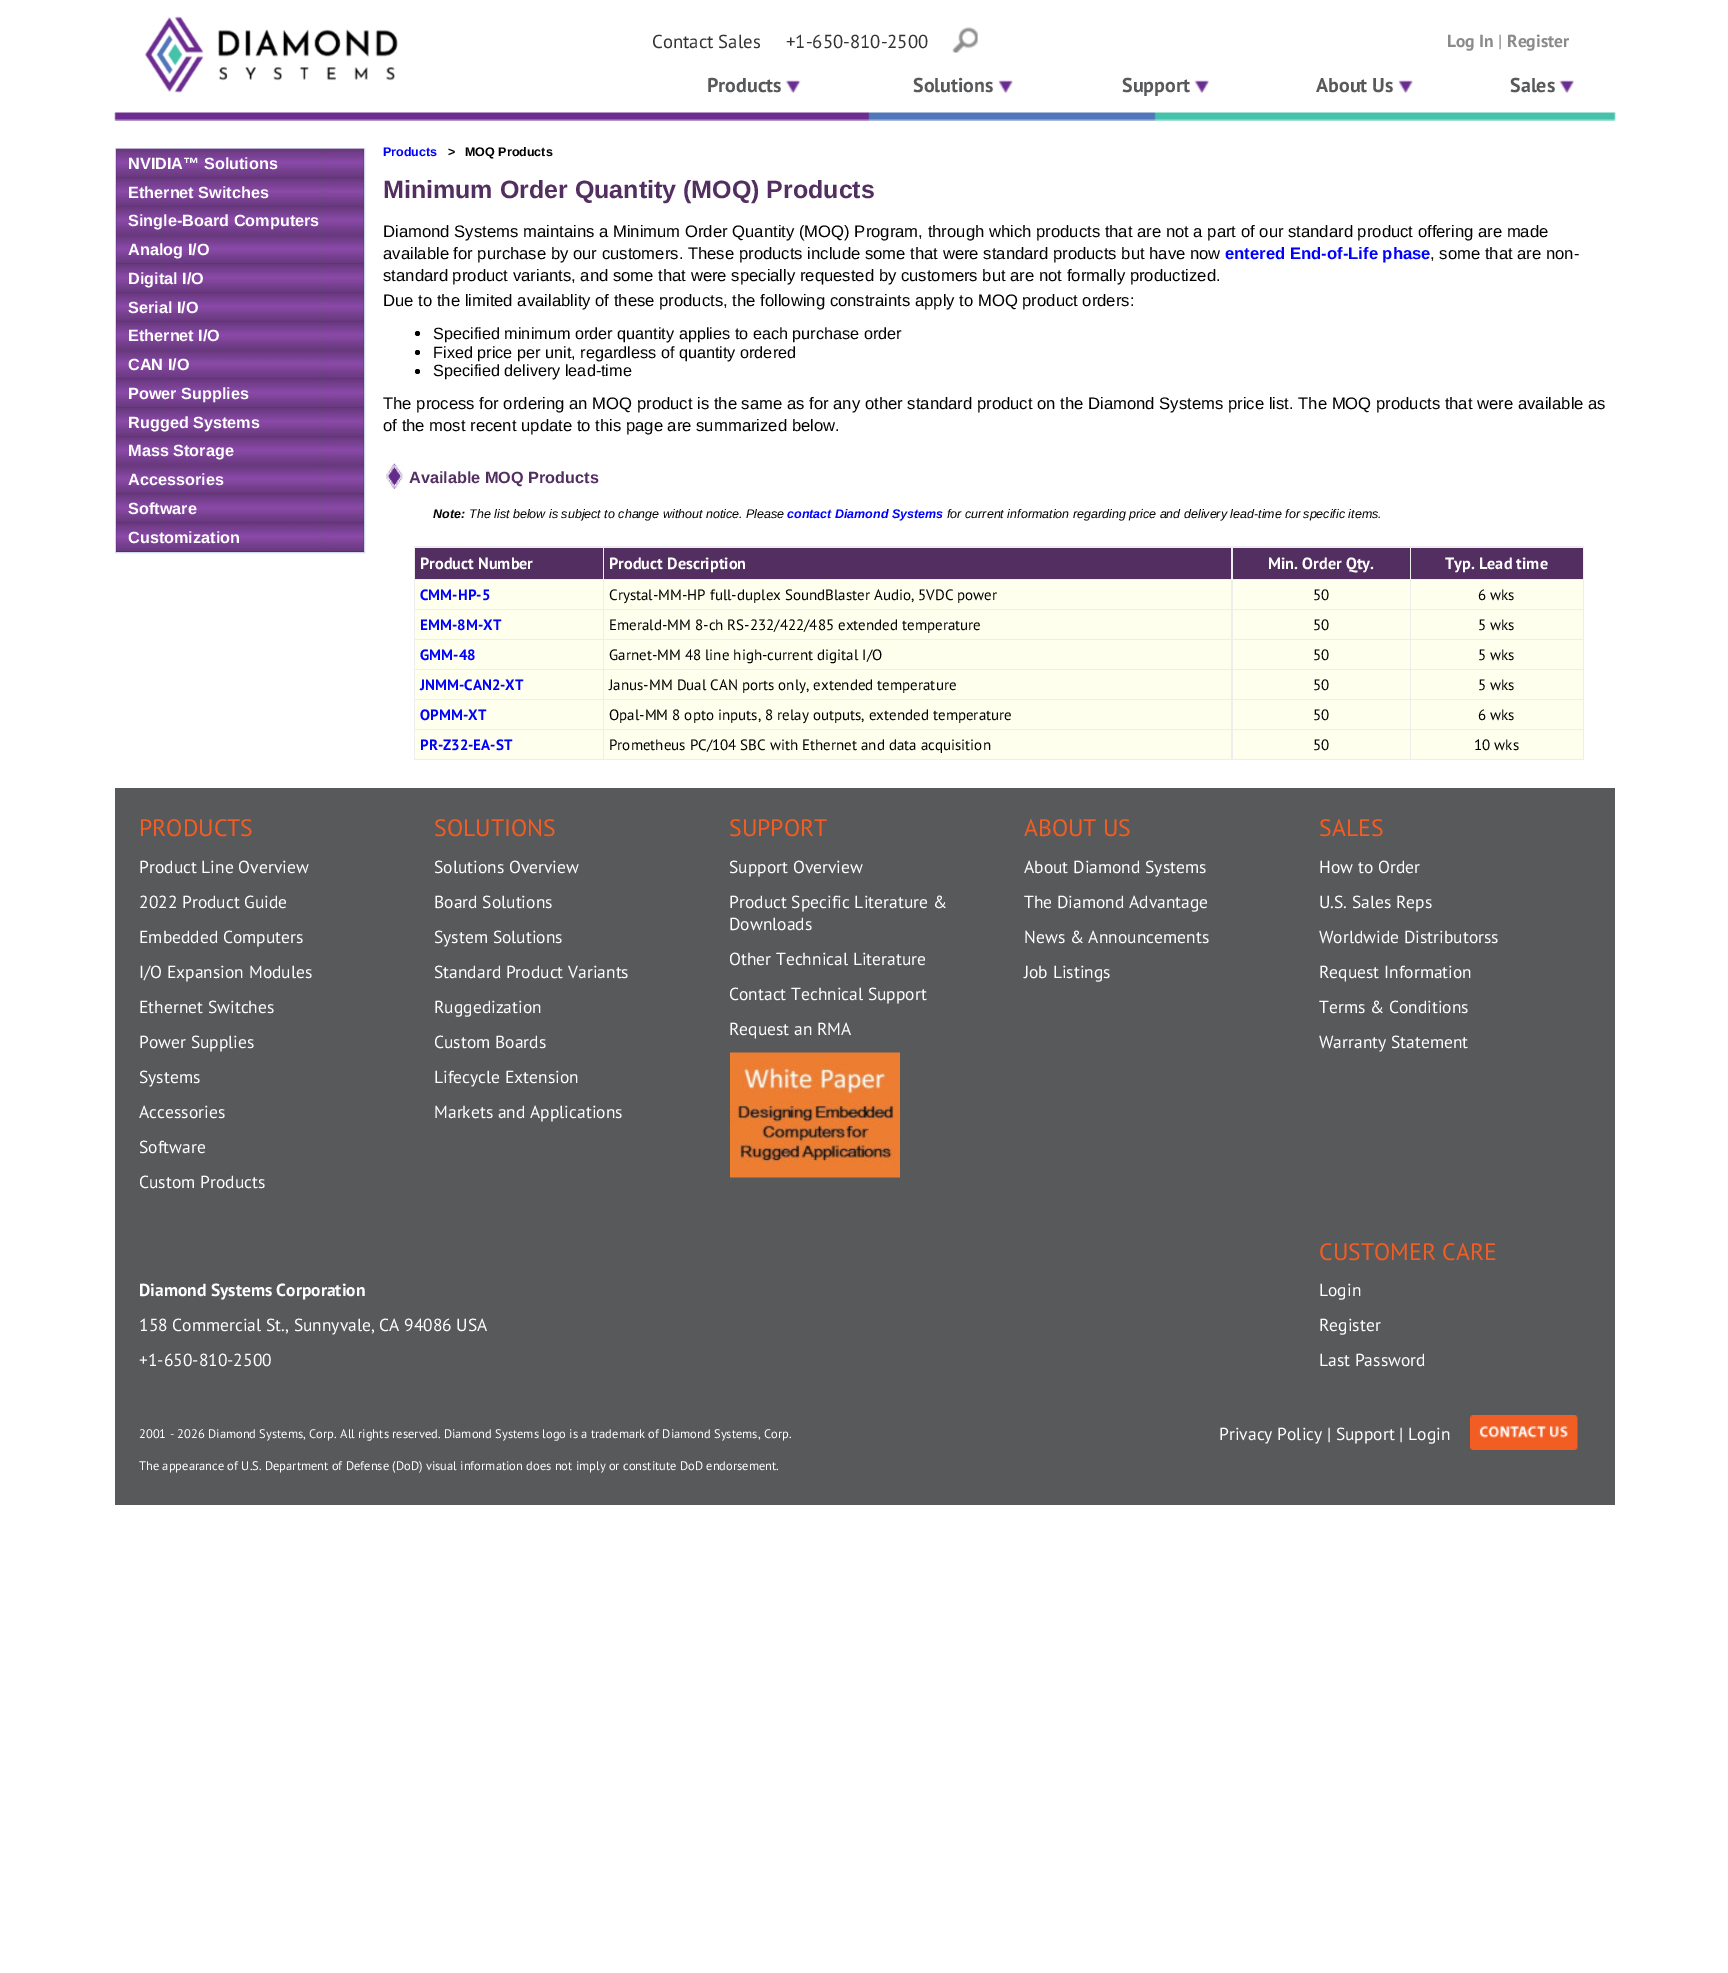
%!PS-Adobe-3.0
%%BoundingBox: 0 0 1728 1973
%%LanguageLevel: 3
%%Pages: 1
%%EndComments
%%BeginProlog
/setink { dup -16 bitshift 255 div exch dup -8 bitshift 255 and 255 div exch 255 and 255 div setrgbcolor } def
/usefont { [ exch dup neg 0 0 3 -1 roll 0 0 ] selectfont } def
/disc { newpath 0 360 arc closepath } def
/drawimage { 5 dict begin { /h /w /y /x /name } { exch def } forall
  gsave x y translate w h scale
  w h 8 [w 0 0 h 0 0] name (r) file false 3 colorimage grestore end } def
%%EndProlog
%%BeginSetup
<< /PageSize [1728 1973] >> setpagedevice
%%EndSetup
%%Page: 1 1
0 1973 translate 1 -1 scale
4 setmiterlimit
16#FFFFFF setink
0 0 1728 1973 rectfill
(img1.raw) 144 16 254 77 drawimage
/PTSans-Regular 18.75 usefont
16#333333 setink
652 48 moveto (Contact Sales) show
786 48 moveto (+1-650-810-2500) show
(img2.raw) 952 27 26 26 drawimage
/PTSans-Bold 17.5 usefont
16#8B8B8D setink
1447 47 moveto (Log In) show
/PTSans-Regular 17.5 usefont
1498 47 moveto (|) show
/PTSans-Bold 17.5 usefont
1507 47 moveto (Register) show
/PTSans-Bold 20 usefont
16#58595B setink
707 92 moveto (Products) show
(img3.raw) 785 80 16 13 drawimage
913 92 moveto (Solutions) show
(img4.raw) 998 80 15 13 drawimage
1122 92 moveto (Support) show
(img5.raw) 1194 80 15 13 drawimage
1316 92 moveto (About Us) show
(img6.raw) 1398 80 15 13 drawimage
1510 92 moveto (Sales) show
(img5.raw) 1559 80 15 13 drawimage
(img7.raw) 114 112 1502 9 drawimage
16#542578 setink
115.5 148.5 moveto 364.5 148.5 lineto 364.5 552.5 lineto 115.5 552.5 lineto closepath gsave fill grestore
16#D2D8EA setink
stroke
(img8.raw) 116 148 248 30 drawimage
/LiberationSans-Bold 16.25 usefont
16#FFFFFF setink
128 169 moveto (NVIDIA™ Solutions) show
(img9.raw) 116 177 248 30 drawimage
128 198 moveto (Ethernet Switches) show
(img10.raw) 116 206 248 29 drawimage
128 226 moveto (Single-Board Computers) show
(img11.raw) 116 235 248 29 drawimage
128 255 moveto (Analog I/O) show
(img12.raw) 116 264 248 29 drawimage
128 284 moveto (Digital I/O) show
(img13.raw) 116 292 248 30 drawimage
128 313 moveto (Serial I/O) show
(img14.raw) 116 321 248 29 drawimage
128 341 moveto (Ethernet I/O) show
(img15.raw) 116 350 248 29 drawimage
128 370 moveto (CAN I/O) show
(img16.raw) 116 379 248 29 drawimage
128 399 moveto (Power Supplies) show
(img17.raw) 116 407 248 30 drawimage
128 428 moveto (Rugged Systems) show
(img18.raw) 116 436 248 29 drawimage
128 456 moveto (Mass Storage) show
(img19.raw) 116 465 248 29 drawimage
128 485 moveto (Accessories) show
(img20.raw) 116 494 248 29 drawimage
128 514 moveto (Software) show
(img21.raw) 116 522 248 30 drawimage
128 543 moveto (Customization) show
/LiberationSans-Bold 12.5 usefont
16#0000FF setink
383 156 moveto (Products) show
16#000000 setink
448 156 moveto (>) show
465 156 moveto (MOQ Products) show
/LiberationSans-Bold 25 usefont
16#532E60 setink
383 198 moveto (Minimum Order Quantity \(MOQ\) Products) show
/LiberationSans-Regular 16.67 usefont
16#000000 setink
383 237 moveto (Diamond Systems maintains a Minimum Order Quantity \(MOQ\) Program, through which products that are not a part of our standard product offering are made) show
383 259 moveto (available for purchase by our customers. These products include some that were standard products but have now) show
/LiberationSans-Bold 16.67 usefont
16#0000FF setink
1225 259 moveto (entered End-of-Life phase) show
/LiberationSans-Regular 16.67 usefont
16#000000 setink
[
    [(, some that are non-) 1430 259]
    [(standard product variants, and some that were specially requested by customers but are not formally productized.) 383 281]
    [(Due to the limited availablity of these products, the following constraints apply to MOQ product orders:) 383 306]
] { aload pop moveto show } forall
417.5 333.5 2.5 disc fill
/LiberationSans-Regular 16.25 usefont
433 339 moveto (Specified minimum order quantity applies to each purchase order) show
417.5 352.5 2.5 disc fill
433 358 moveto (Fixed price per unit, regardless of quantity ordered) show
417.5 371.5 2.5 disc fill
433 376 moveto (Specified delivery lead-time) show
/LiberationSans-Regular 16.67 usefont
383 409 moveto (The process for ordering an MOQ product is the same as for any other standard product on the Diamond Systems price list. The MOQ products that were available as) show
383 431 moveto (of the most recent update to this page are summarized below.) show
(img22.raw) 386 463 17 26 drawimage
/LiberationSans-Bold 16.25 usefont
16#532E60 setink
409 483 moveto (Available MOQ Products) show
/LiberationSans-BoldItalic 12.5 usefont
16#000000 setink
433 518 moveto (Note:) show
/LiberationSans-Italic 12.5 usefont
469 518 moveto (The list below is subject to change without notice. Please) show
/LiberationSans-BoldItalic 12.5 usefont
16#0000FF setink
787 518 moveto (contact Diamond Systems) show
/LiberationSans-Italic 12.5 usefont
16#000000 setink
947 518 moveto (for current information regarding price and delivery lead-time for specific items.) show
16#EEEEEE setink
414 546 1170 214 rectfill
16#532E60 setink
415 548 188 31 rectfill
/PTSans-Bold 16.25 usefont
16#FFFFFF setink
420 569 moveto (Product Number) show
16#532E60 setink
604 548 627 31 rectfill
16#FFFFFF setink
609 569 moveto (Product Description) show
16#532E60 setink
1233 548 177 31 rectfill
16#FFFFFF setink
1268 569 moveto (Min. Order Qty.) show
16#532E60 setink
1411 548 172 31 rectfill
16#FFFFFF setink
1445 569 moveto (Typ. Lead time) show
16#FFFFEE setink
415 580 188 29 rectfill
/PTSans-Bold 15 usefont
16#0000FF setink
420 600 moveto (CMM-HP-5) show
16#FFFFEE setink
604 580 627 29 rectfill
/PTSans-Regular 15 usefont
16#000000 setink
609 600 moveto (Crystal-MM-HP full-duplex SoundBlaster Audio, 5VDC power) show
16#FFFFEE setink
1233 580 177 29 rectfill
16#000000 setink
1313 600 moveto (50) show
16#FFFFEE setink
1411 580 172 29 rectfill
16#000000 setink
1478 600 moveto (6 wks) show
16#FFFFEE setink
415 610 188 29 rectfill
/PTSans-Bold 15 usefont
16#0000FF setink
420 630 moveto (EMM-8M-XT) show
16#FFFFEE setink
604 610 627 29 rectfill
/PTSans-Regular 15 usefont
16#000000 setink
609 630 moveto (Emerald-MM 8-ch RS-232/422/485 extended temperature) show
16#FFFFEE setink
1233 610 177 29 rectfill
16#000000 setink
1313 630 moveto (50) show
16#FFFFEE setink
1411 610 172 29 rectfill
16#000000 setink
1478 630 moveto (5 wks) show
16#FFFFEE setink
415 640 188 29 rectfill
/PTSans-Bold 15 usefont
16#0000FF setink
420 660 moveto (GMM-48) show
16#FFFFEE setink
604 640 627 29 rectfill
/PTSans-Regular 15 usefont
16#000000 setink
609 660 moveto (Garnet-MM 48 line high-current digital I/O) show
16#FFFFEE setink
1233 640 177 29 rectfill
16#000000 setink
1313 660 moveto (50) show
16#FFFFEE setink
1411 640 172 29 rectfill
16#000000 setink
1478 660 moveto (5 wks) show
16#FFFFEE setink
415 670 188 29 rectfill
/PTSans-Bold 15 usefont
16#0000FF setink
420 690 moveto (JNMM-CAN2-XT) show
16#FFFFEE setink
604 670 627 29 rectfill
/PTSans-Regular 15 usefont
16#000000 setink
609 690 moveto (Janus-MM Dual CAN ports only, extended temperature) show
16#FFFFEE setink
1233 670 177 29 rectfill
16#000000 setink
1313 690 moveto (50) show
16#FFFFEE setink
1411 670 172 29 rectfill
16#000000 setink
1478 690 moveto (5 wks) show
16#FFFFEE setink
415 700 188 29 rectfill
/PTSans-Bold 15 usefont
16#0000FF setink
420 720 moveto (OPMM-XT) show
16#FFFFEE setink
604 700 627 29 rectfill
/PTSans-Regular 15 usefont
16#000000 setink
609 720 moveto (Opal-MM 8 opto inputs, 8 relay outputs, extended temperature) show
16#FFFFEE setink
1233 700 177 29 rectfill
16#000000 setink
1313 720 moveto (50) show
16#FFFFEE setink
1411 700 172 29 rectfill
16#000000 setink
1478 720 moveto (6 wks) show
16#FFFFEE setink
415 730 188 29 rectfill
/PTSans-Bold 15 usefont
16#0000FF setink
420 750 moveto (PR-Z32-EA-ST) show
16#FFFFEE setink
604 730 627 29 rectfill
/PTSans-Regular 15 usefont
16#000000 setink
609 750 moveto (Prometheus PC/104 SBC with Ethernet and data acquisition) show
16#FFFFEE setink
1233 730 177 29 rectfill
16#000000 setink
1313 750 moveto (50) show
16#FFFFEE setink
1411 730 172 29 rectfill
16#000000 setink
1474 750 moveto (10 wks) show
16#58595B setink
115 788 1500 717 rectfill
/PTSans-Regular 23.75 usefont
16#F15D22 setink
139 836 moveto (PRODUCTS) show
/PTSans-Regular 17.5 usefont
16#FFFFFF setink
[
    [(Product Line Overview) 139 873]
    [(2022 Product Guide) 139 908]
    [(Embedded Computers) 139 943]
    [(I/O Expansion Modules) 139 978]
    [(Ethernet Switches) 139 1013]
    [(Power Supplies) 139 1048]
    [(Systems) 139 1083]
    [(Accessories) 139 1118]
    [(Software) 139 1153]
    [(Custom Products) 139 1188]
] { aload pop moveto show } forall
/PTSans-Regular 23.75 usefont
16#F15D22 setink
434 836 moveto (SOLUTIONS) show
/PTSans-Regular 17.5 usefont
16#FFFFFF setink
[
    [(Solutions Overview) 434 873]
    [(Board Solutions) 434 908]
    [(System Solutions) 434 943]
    [(Standard Product Variants) 434 978]
    [(Ruggedization) 434 1013]
    [(Custom Boards) 434 1048]
    [(Lifecycle Extension) 434 1083]
    [(Markets and Applications) 434 1118]
] { aload pop moveto show } forall
/PTSans-Regular 23.75 usefont
16#F15D22 setink
729 836 moveto (SUPPORT) show
/PTSans-Regular 17.5 usefont
16#FFFFFF setink
[
    [(Support Overview) 729 873]
    [(Product Specific Literature &) 729 908]
    [(Downloads) 729 930]
    [(Other Technical Literature) 729 965]
    [(Contact Technical Support) 729 1000]
    [(Request an RMA) 729 1035]
] { aload pop moveto show } forall
(img23.raw) 730 1052 170 126 drawimage
/PTSans-Regular 23.75 usefont
16#F15D22 setink
1024 836 moveto (ABOUT US) show
/PTSans-Regular 17.5 usefont
16#FFFFFF setink
[
    [(About Diamond Systems) 1024 873]
    [(The Diamond Advantage) 1024 908]
    [(News & Announcements) 1024 943]
    [(Job Listings) 1024 978]
] { aload pop moveto show } forall
/PTSans-Regular 23.75 usefont
16#F15D22 setink
1319 836 moveto (SALES) show
/PTSans-Regular 17.5 usefont
16#FFFFFF setink
[
    [(How to Order) 1319 873]
    [(U.S. Sales Reps) 1319 908]
    [(Worldwide Distributorss) 1319 943]
    [(Request Information) 1319 978]
    [(Terms & Conditions) 1319 1013]
    [(Warranty Statement) 1319 1048]
] { aload pop moveto show } forall
/PTSans-Bold 17.5 usefont
139 1296 moveto (Diamond Systems Corporation) show
/PTSans-Regular 17.5 usefont
139 1331 moveto (158 Commercial St., Sunnyvale, CA 94086 USA) show
139 1366 moveto (+1-650-810-2500) show
/PTSans-Regular 23.75 usefont
16#F15D22 setink
1319 1260 moveto (CUSTOMER CARE) show
/PTSans-Regular 17.5 usefont
16#FFFFFF setink
[
    [(Login) 1319 1296]
    [(Register) 1319 1331]
    [(Last Password) 1319 1366]
] { aload pop moveto show } forall
/PTSans-Regular 12.5 usefont
139 1438 moveto (2001 - 2026 Diamond Systems, Corp. All rights reserved. Diamond Systems logo is a trademark of Diamond Systems, Corp.) show
/PTSans-Regular 17.5 usefont
1219 1440 moveto (Privacy Policy | Support | Login) show
(img24.raw) 1470 1415 108 35 drawimage
/PTSans-Regular 12.5 usefont
139 1470 moveto (The appearance of U.S. Department of Defense \(DoD\) visual information does not imply or constitute DoD endorsement.) show
showpage
%%EOF
